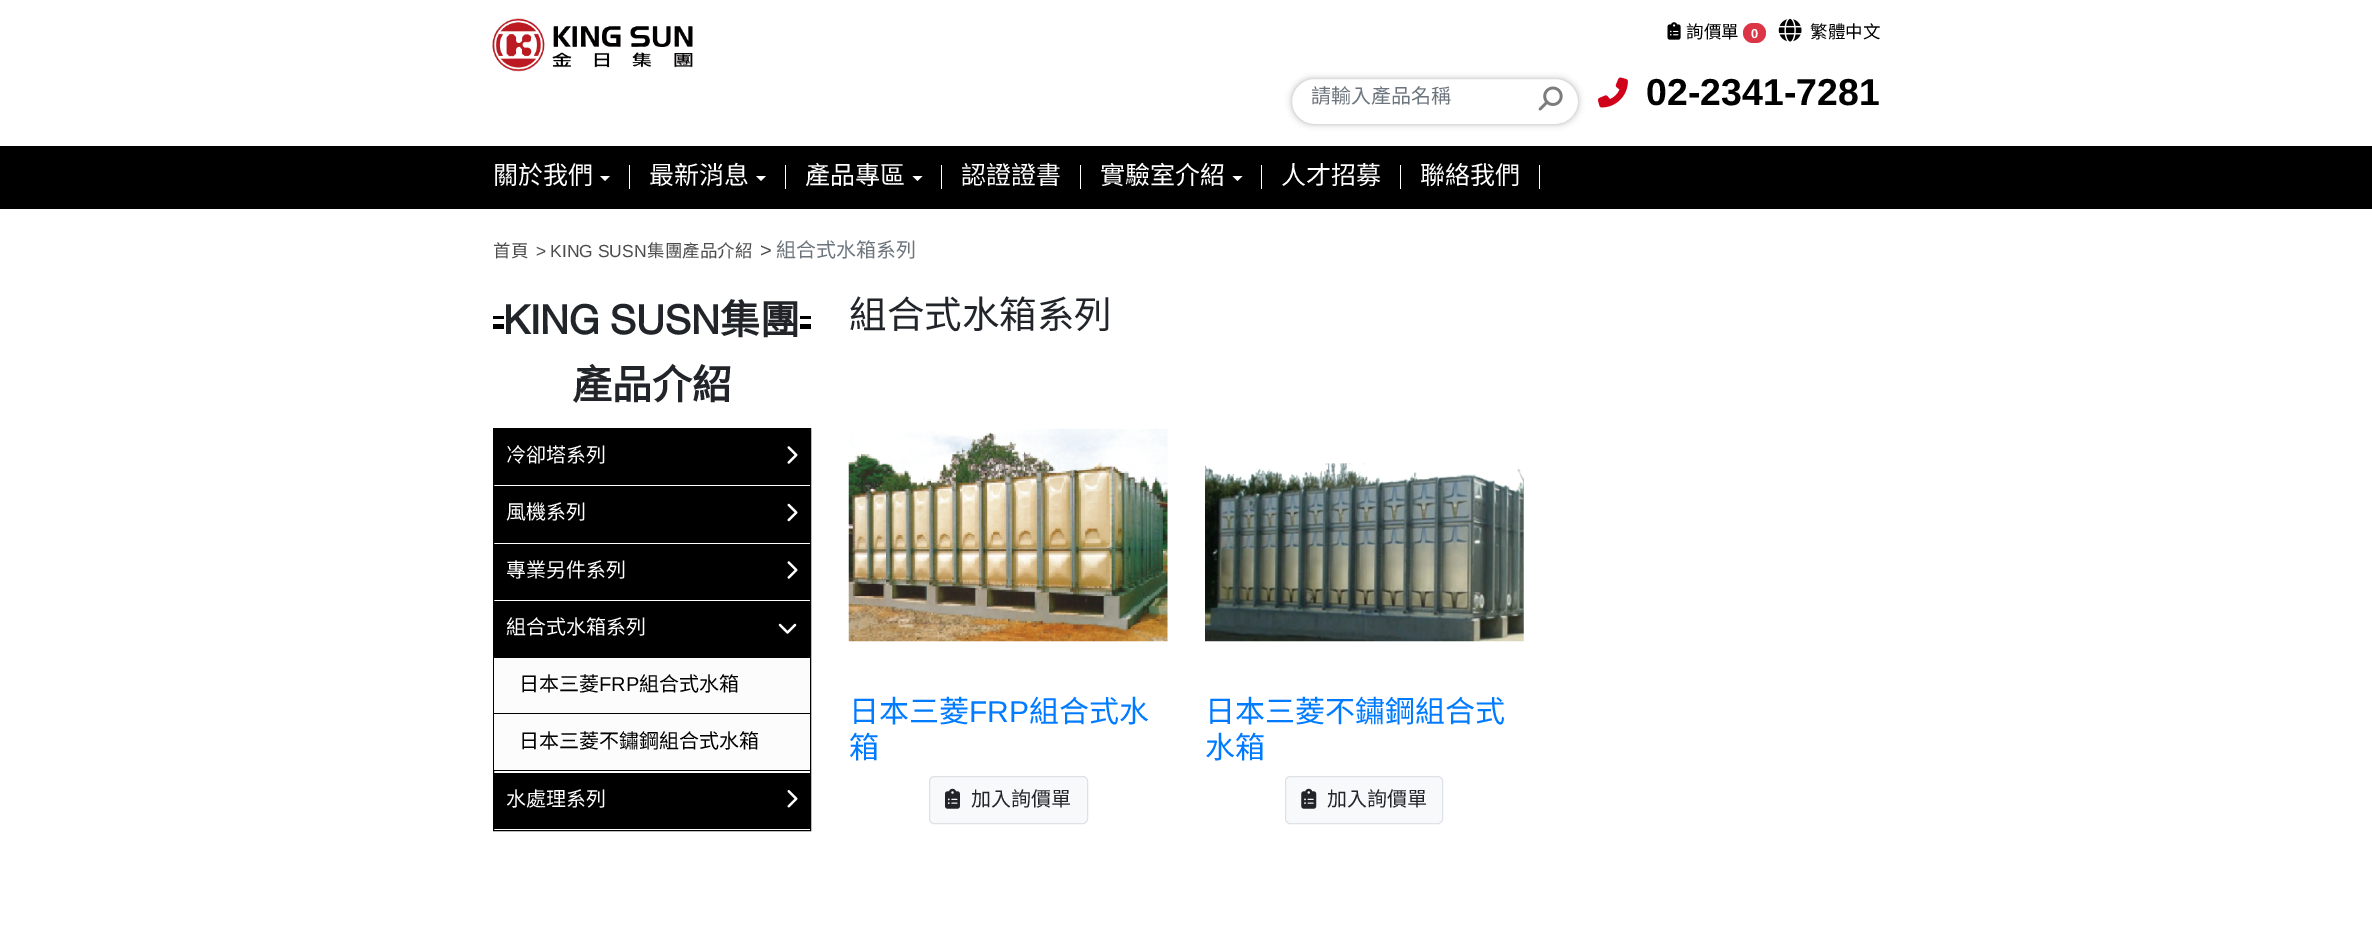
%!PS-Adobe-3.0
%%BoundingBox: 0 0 2372 929
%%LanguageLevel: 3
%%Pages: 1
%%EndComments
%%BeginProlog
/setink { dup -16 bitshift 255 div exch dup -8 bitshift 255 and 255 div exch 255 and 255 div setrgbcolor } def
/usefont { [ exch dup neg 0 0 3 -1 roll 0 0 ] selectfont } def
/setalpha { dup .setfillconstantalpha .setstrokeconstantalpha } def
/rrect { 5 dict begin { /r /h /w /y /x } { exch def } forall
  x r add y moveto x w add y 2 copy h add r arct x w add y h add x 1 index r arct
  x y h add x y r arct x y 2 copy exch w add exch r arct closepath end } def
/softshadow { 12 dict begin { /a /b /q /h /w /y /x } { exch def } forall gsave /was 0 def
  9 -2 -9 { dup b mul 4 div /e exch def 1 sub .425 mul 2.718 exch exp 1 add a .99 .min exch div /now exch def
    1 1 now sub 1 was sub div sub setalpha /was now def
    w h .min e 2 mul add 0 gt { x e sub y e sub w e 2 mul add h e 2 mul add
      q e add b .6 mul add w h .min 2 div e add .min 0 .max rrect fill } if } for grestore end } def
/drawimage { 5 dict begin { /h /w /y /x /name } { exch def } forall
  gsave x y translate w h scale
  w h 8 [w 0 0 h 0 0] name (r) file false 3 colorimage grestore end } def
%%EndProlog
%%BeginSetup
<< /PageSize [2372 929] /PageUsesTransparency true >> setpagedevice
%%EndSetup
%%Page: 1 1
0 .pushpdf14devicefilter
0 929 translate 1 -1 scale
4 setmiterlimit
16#FFFFFF setink
0 0 2372 929 rectfill
(img1.raw) 492 18 201 54 drawimage
(img2.raw) 1667 22 14 18 drawimage
/NotoSansCJKTC-Regular 17.5 usefont
16#000000 setink
1686 38 moveto (詢價單) show
16#DC3545 setink
1743 23 23 20 10 rrect fill
/LiberationSans-Bold 13 usefont
16#FFFFFF setink
1751 38 moveto (0) show
(img3.raw) 1778 18 24 24 drawimage
/NotoSansCJKTC-Regular 17.5 usefont
16#000000 setink
1810 38 moveto (繁體中文) show
gsave
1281 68 moveto 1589 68 lineto 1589 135 lineto 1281 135 lineto closepath 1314.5 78 moveto 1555.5 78 lineto 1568.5 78 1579 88.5 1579 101.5 curveto 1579 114.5 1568.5 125 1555.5 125 curveto 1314.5 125 lineto 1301.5 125 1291 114.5 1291 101.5 curveto 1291 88.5 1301.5 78 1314.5 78 curveto closepath eoclip newpath
1291 78 288 47 23.5 3 0.2 softshadow
grestore
16#DDDDDD setink
1291.5 78.5 287 46 23 rrect stroke
/NotoSansCJKTC-Regular 20 usefont
16#6C757D setink
1311 103 moveto (請輸入產品名稱) show
(img4.raw) 1538 86 25 25 drawimage
(img5.raw) 1598 77 30 31 drawimage
/LiberationSans-Bold 37.5 usefont
16#000000 setink
1646 105 moveto (02-2341-7281) show
0 146 2372 63 rectfill
16#FFFFFF setink
629 165 1 24 rectfill
/NotoSansCJKTC-Regular 25 usefont
493 184 moveto (關於我們) show
600 176 moveto 610 176 lineto 605 181 lineto closepath fill
785 165 1 24 rectfill
649 184 moveto (最新消息) show
756 176 moveto 766 176 lineto 761 181 lineto closepath fill
941 165 1 24 rectfill
805 184 moveto (產品專區) show
912.5 176 moveto 922.5 176 lineto 917.5 181 lineto closepath fill
1080 165 1 24 rectfill
961 184 moveto (認證證書) show
1261 165 1 24 rectfill
1100 184 moveto (實驗室介紹) show
1232.5 176 moveto 1242.5 176 lineto 1237.5 181 lineto closepath fill
1400 165 1 24 rectfill
1281 184 moveto (人才招募) show
1539 165 1 24 rectfill
1420 184 moveto (聯絡我們) show
/NotoSansCJKTC-Regular 17.5 usefont
16#4C4C4C setink
493 257 moveto (首頁) show
/LiberationSans-Regular 17.5 usefont
536 257 moveto (>) show
550 257 moveto (KING SUSN) show
/NotoSansCJKTC-Regular 17.5 usefont
647 257 moveto (集團產品介紹) show
/LiberationSans-Regular 20 usefont
760 257 moveto (>) show
/NotoSansCJKTC-Regular 20 usefont
16#6C757D setink
776 257 moveto (組合式水箱系列) show
[
    [493 316 318 3 16#000000]
    [493 324 318 5 16#000000]
    [504 316 296 13 16#FFFFFF]
] { aload pop setink rectfill } forall
/HelveticaNeue-Bold 40 usefont
16#212529 setink
503 334 moveto (KING SUSN) show
/NotoSansCJKTC-Bold 40 usefont
720 334 moveto (集團) show
572 399 moveto (產品介紹) show
16#000000 setink
493.5 428.5 317 402 rectstroke
494 429 316 56 rectfill
/NotoSansCJKTC-Regular 20 usefont
16#FFFFFF setink
506 462 moveto (冷卻塔系列) show
(img6.raw) 787 446 11 18 drawimage
16#000000 setink
494 486 316 57 rectfill
16#FFFFFF setink
506 519 moveto (風機系列) show
(img7.raw) 787 503 11 19 drawimage
16#000000 setink
494 544 316 56 rectfill
16#FFFFFF setink
506 577 moveto (專業另件系列) show
(img6.raw) 787 561 11 18 drawimage
16#000000 setink
494 601 316 57 rectfill
16#FFFFFF setink
506 634 moveto (組合式水箱系列) show
(img8.raw) 778 623 19 11 drawimage
16#FCFCFC setink
494 658 316 112 rectfill
16#000000 setink
494 713 316 1 rectfill
519 691 moveto (日本三菱) show
/LiberationSans-Regular 20 usefont
599 691 moveto (FRP) show
/NotoSansCJKTC-Regular 20 usefont
639 691 moveto (組合式水箱) show
494 770 316 1 rectfill
519 748 moveto (日本三菱不鏽鋼組合式水箱) show
494 773 316 56 rectfill
16#FFFFFF setink
506 806 moveto (水處理系列) show
(img9.raw) 787 790 11 18 drawimage
/NotoSansCJKTC-Regular 37.5 usefont
16#212529 setink
849 328 moveto (組合式水箱系列) show
(img10.raw) 848 428 320 214 drawimage
/NotoSansCJKTC-Regular 30 usefont
16#007BFF setink
849 722 moveto (日本三菱) show
/LiberationSans-Regular 30 usefont
969 722 moveto (FRP) show
/NotoSansCJKTC-Regular 30 usefont
1029 722 moveto (組合式水) show
849 758 moveto (箱) show
16#F8F9FA setink
929.5 776.5 158 47 4.5 rrect gsave fill grestore
16#DEE2E6 setink
stroke
(img11.raw) 945 788 15 21 drawimage
/NotoSansCJKTC-Regular 20 usefont
16#212529 setink
971 806 moveto (加入詢價單) show
(img12.raw) 1205 463 319 179 drawimage
/NotoSansCJKTC-Regular 30 usefont
16#007BFF setink
1205 722 moveto (日本三菱不鏽鋼組合式) show
1205 758 moveto (水箱) show
16#F8F9FA setink
1285.5 776.5 157 47 4.5 rrect gsave fill grestore
16#DEE2E6 setink
stroke
(img13.raw) 1301 788 16 21 drawimage
/NotoSansCJKTC-Regular 20 usefont
16#212529 setink
1327 806 moveto (加入詢價單) show
.poppdf14devicefilter showpage
%%EOF
